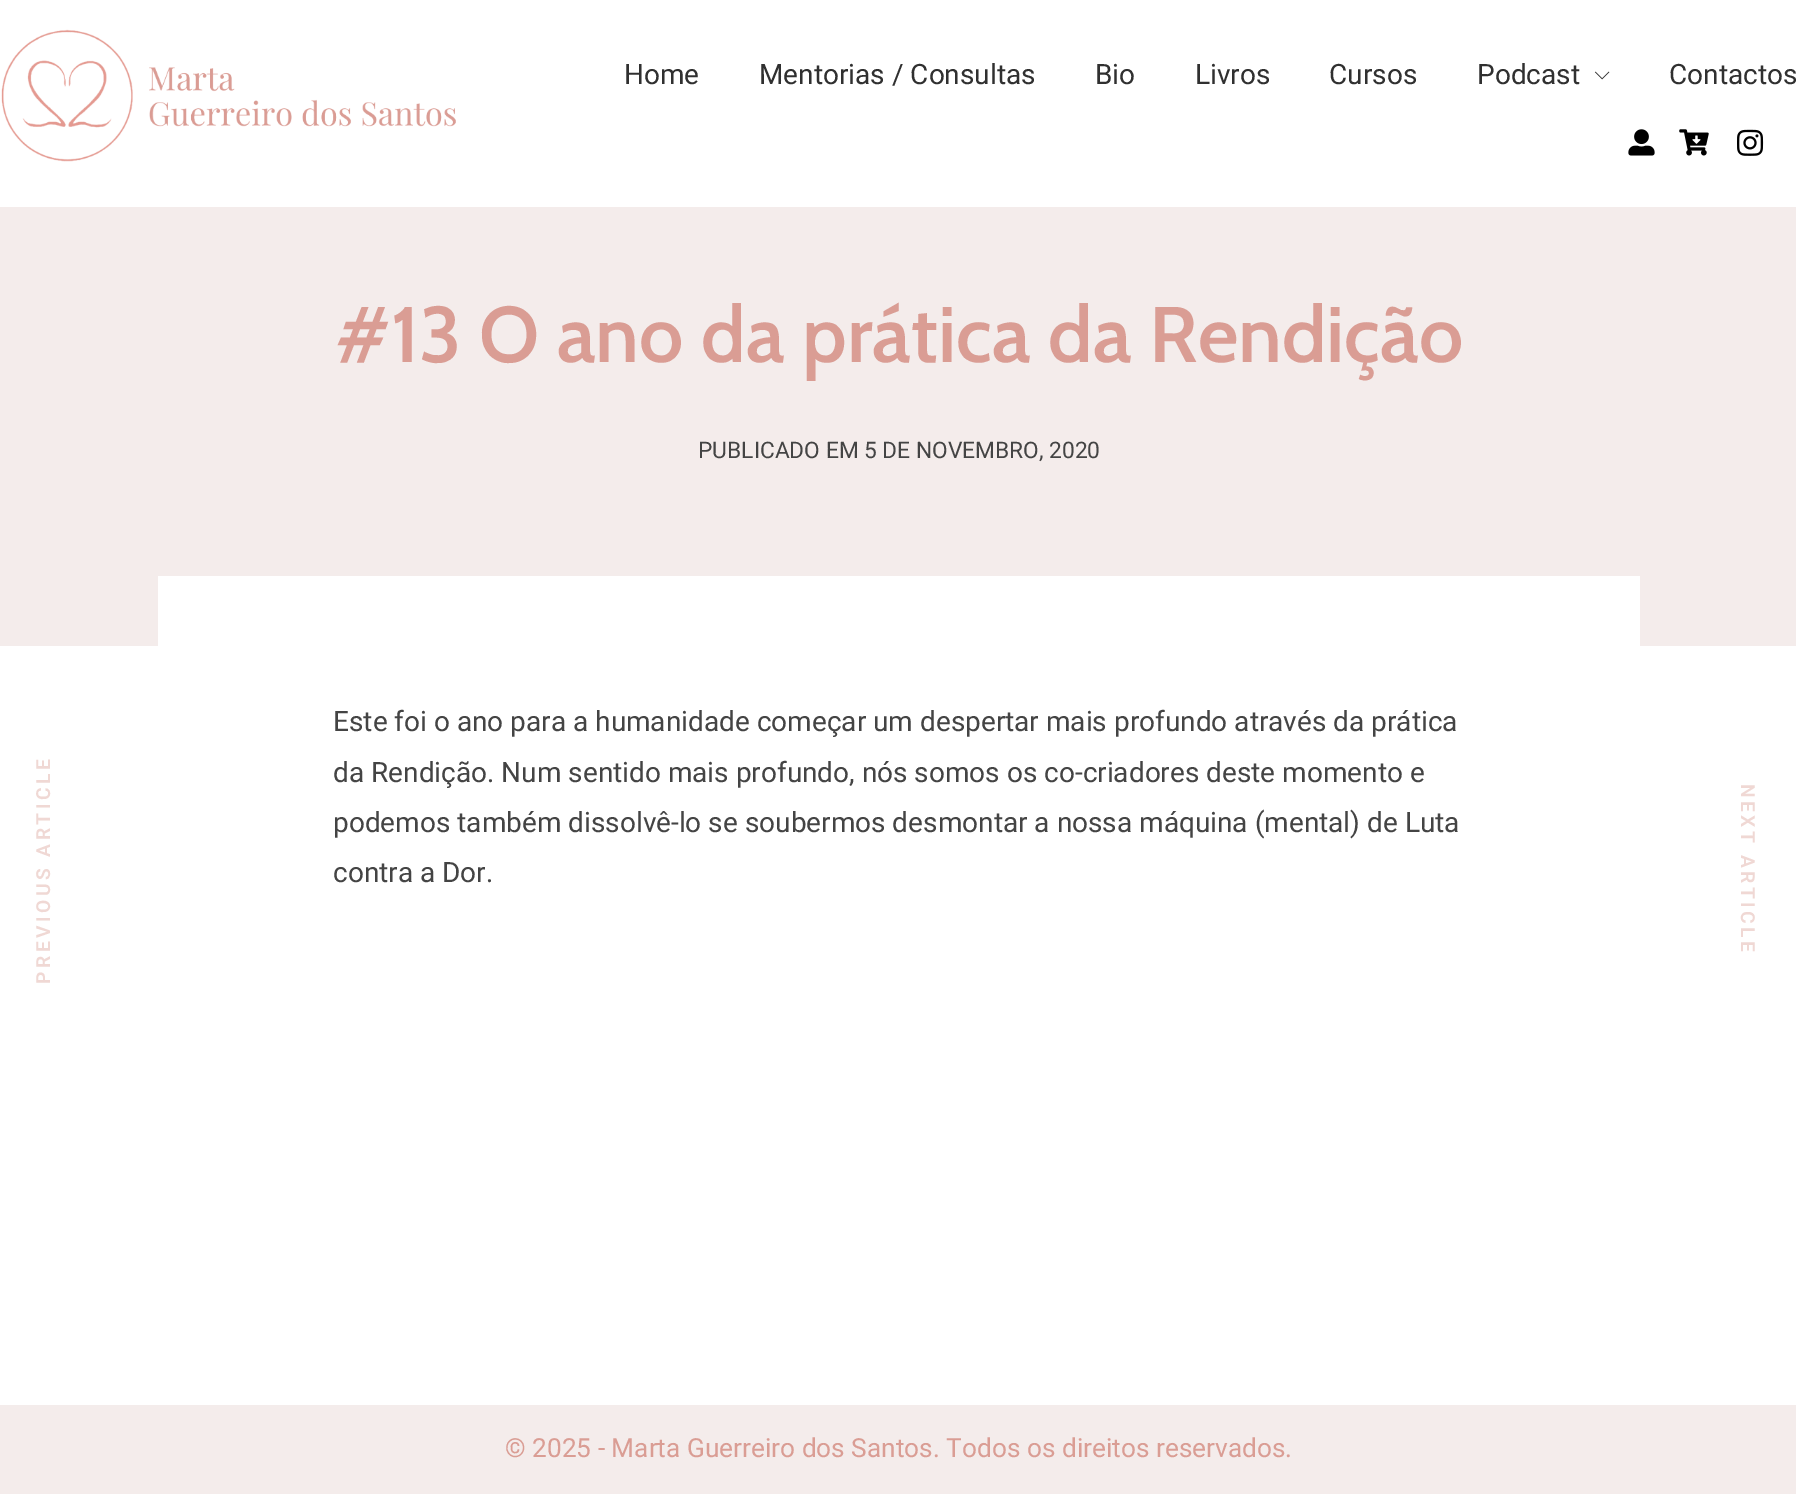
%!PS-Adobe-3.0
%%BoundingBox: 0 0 1796 1494
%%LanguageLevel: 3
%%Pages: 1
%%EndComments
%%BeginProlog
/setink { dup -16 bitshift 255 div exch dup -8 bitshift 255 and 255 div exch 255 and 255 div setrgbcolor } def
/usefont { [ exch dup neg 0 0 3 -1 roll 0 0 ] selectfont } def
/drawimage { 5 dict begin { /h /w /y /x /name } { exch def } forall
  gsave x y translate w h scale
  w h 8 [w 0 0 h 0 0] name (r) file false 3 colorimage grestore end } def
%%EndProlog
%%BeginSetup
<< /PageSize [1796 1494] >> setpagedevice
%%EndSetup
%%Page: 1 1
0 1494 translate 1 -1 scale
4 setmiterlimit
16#FFFFFF setink
0 0 1796 1494 rectfill
(img1.raw) 1 29 455 133 drawimage
/Roboto-Regular 28 usefont
16#303030 setink
[
    [(Home) 624 84]
    [(Mentorias / Consultas) 759 84]
    [(Bio) 1095 84]
    [(Livros) 1195 84]
    [(Cursos) 1329 84]
    [(Podcast) 1477 84]
] { aload pop moveto show } forall
(img2.raw) 1594 71 16 9 drawimage
1669 84 moveto (Contactos) show
(img3.raw) 1628 129 27 27 drawimage
(img4.raw) 1679 129 30 27 drawimage
(img5.raw) 1737 129 27 27 drawimage
16#F4ECEB setink
0 207 1796 439 rectfill
/Cabin-SemiBold 78.75 usefont
16#DA9D94 setink
335 362 moveto (#13 O ano da prática da Rendição) show
/Roboto-Regular 22.75 usefont
16#444444 setink
698 458 moveto (PUBLICADO EM 5 DE NOVEMBRO, 2020) show
16#FFFFFF setink
158 576 1482 70 rectfill
/Roboto-SemiBold 19.25 usefont
16#F0D8D4 setink
gsave 50 984 translate -90 rotate 0 0 moveto 3.5 0 (PREVIOUS ARTICLE) ashow grestore
/Roboto-Regular 28 usefont
16#444444 setink
[
    [(Este foi o ano para a humanidade começar um despertar mais profundo através da prática) 333 731]
    [(da Rendição. Num sentido mais profundo, nós somos os co-criadores deste momento e) 333 782]
    [(podemos também dissolvê-lo se soubermos desmontar a nossa máquina \(mental\) de Luta) 333 832]
    [(contra a Dor.) 333 882]
] { aload pop moveto show } forall
/Roboto-SemiBold 19.25 usefont
16#F0D8D4 setink
gsave 1741 784 translate 90 rotate 0 0 moveto 3.5 0 (NEXT ARTICLE) ashow grestore
16#F4ECEB setink
0 1405 1796 89 rectfill
/Roboto-Regular 26.25 usefont
16#DA9D94 setink
505 1457 moveto (© 2025 - Marta Guerreiro dos Santos. Todos os direitos reservados.) show
showpage
%%EOF
